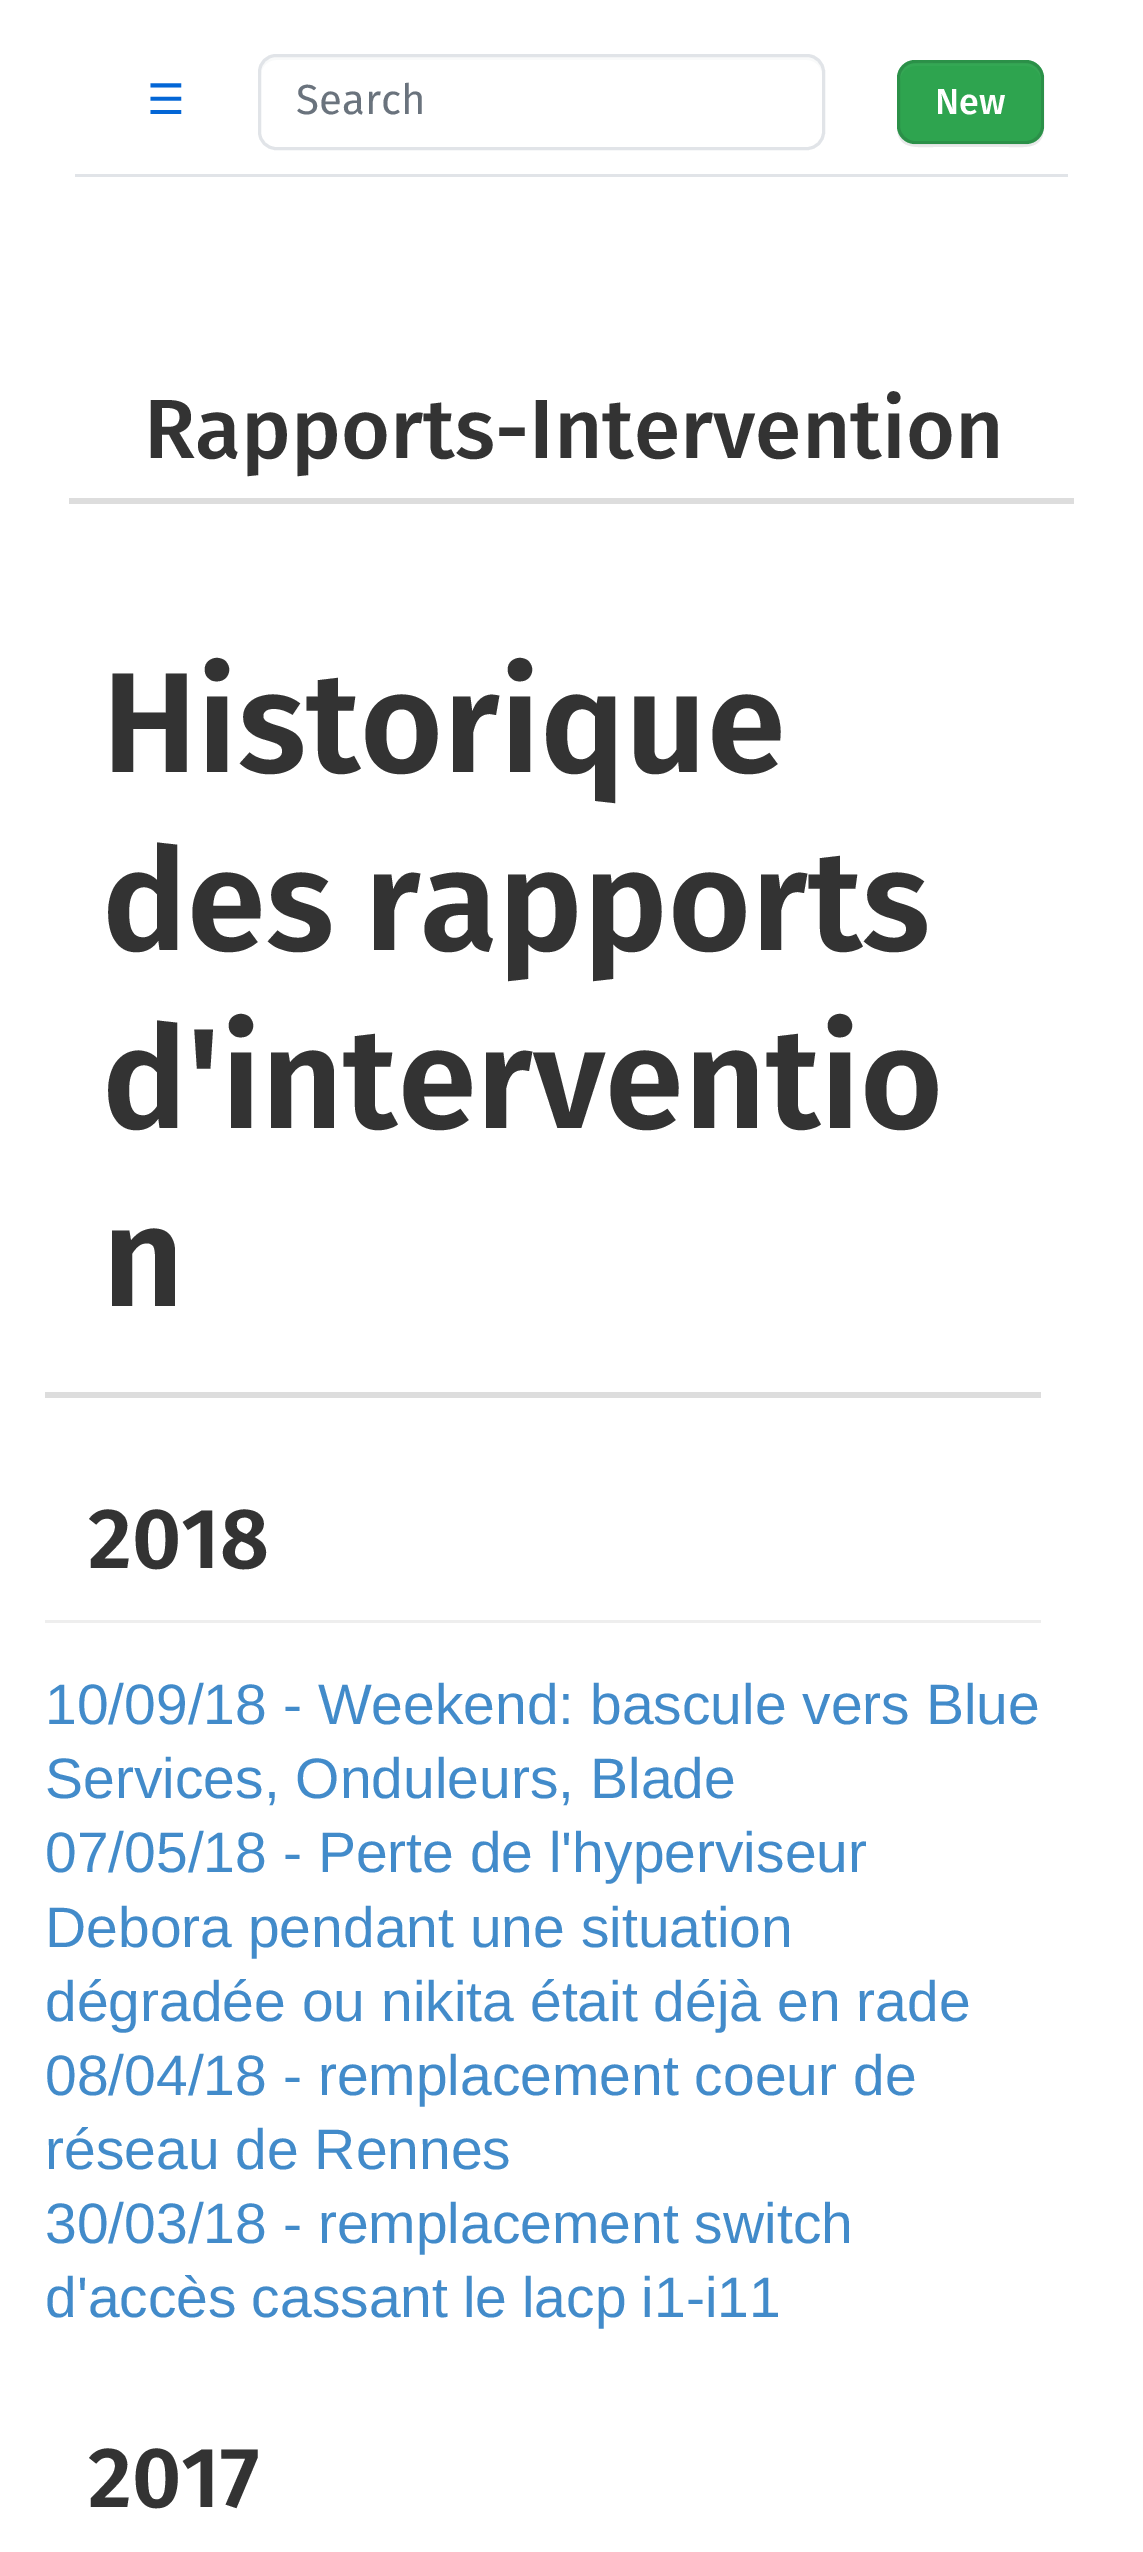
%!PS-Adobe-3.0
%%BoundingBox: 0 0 1143 2552
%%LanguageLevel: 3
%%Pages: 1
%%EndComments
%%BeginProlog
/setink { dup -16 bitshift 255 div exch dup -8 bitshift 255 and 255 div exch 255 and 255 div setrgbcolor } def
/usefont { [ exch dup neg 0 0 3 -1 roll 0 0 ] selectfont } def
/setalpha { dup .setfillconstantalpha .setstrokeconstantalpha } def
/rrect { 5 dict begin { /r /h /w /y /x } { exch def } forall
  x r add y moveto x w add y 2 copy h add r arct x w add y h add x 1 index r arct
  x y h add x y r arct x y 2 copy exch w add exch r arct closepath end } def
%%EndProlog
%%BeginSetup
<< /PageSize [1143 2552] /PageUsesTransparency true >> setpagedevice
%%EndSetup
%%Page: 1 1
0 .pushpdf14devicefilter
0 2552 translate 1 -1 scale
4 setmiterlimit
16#FFFFFF setink
0 0 1143 2552 rectfill
16#E1E4E8 setink
75 174 993 3 rectfill
/DejaVuSans-Regular 42 usefont
16#0366D6 setink
147 114 moveto (☰) show
16#F9FAFA setink
276 60 moveto 807 60 lineto 815 60 822 67 822 75 curveto 822 67 819 59 810 57 curveto 273 57 lineto 264 59 261 67 261 75 curveto 261 67 268 60 276 60 curveto closepath fill
16#E1E4E8 setink
3 setlinewidth
259.5 55.5 564 93 16.5 rrect stroke
/FiraSans-Regular 42 usefont
16#6A737D setink
296 114 moveto (Search) show
16#E8E9E9 setink
897 126 moveto 897 150 915 147 934 147 curveto 1008 147 lineto 1026 147 1044 150 1044 126 curveto 1044 136 1036 144 1026 144 curveto 915 144 lineto 905 144 897 136 897 126 curveto closepath fill
16#2EA44F setink
897 60 147 84 18 rrect fill
16#34A754 setink
915 66 moveto 1026 66 lineto 1034 66 1041 73 1041 81 curveto 1041 60 1024 63 1008 63 curveto 934 63 lineto 917 63 900 60 900 81 curveto 900 73 907 66 915 66 curveto closepath fill
0.15 setalpha
16#1B1F23 setink
898.5 61.5 144 81 16.5 rrect stroke
/FiraSans-Medium 36 usefont
1 setalpha
16#FFFFFF setink
935 114 moveto (New) show
16#DDDDDD setink
69 498 1005 6 rectfill
/FiraSans-Medium 84 usefont
16#333333 setink
144 458 moveto (Rapports-Intervention) show
16#DDDDDD setink
45 1392 996 6 rectfill
/FiraSans-SemiBold 142.5 usefont
16#333333 setink
102 772 moveto (Historique) show
102 950 moveto -5 0 32 (des rapports) widthshow
102 1128 moveto (d'interventio) show
102 1306 moveto (n) show
16#EEEEEE setink
45 1620 996 3 rectfill
/FiraSans-SemiBold 85.5 usefont
16#333333 setink
88 1568 moveto (2018) show
/LiberationSans-Regular 57 usefont
16#428BCA setink
[
    [(10/09/18 - Weekend: bascule vers Blue) 45 1724]
    [(Services, Onduleurs, Blade) 45 1798]
    [(07/05/18 - Perte de l'hyperviseur) 45 1872]
    [(Debora pendant une situation) 45 1947]
    [(dégradée ou nikita était déjà en rade) 45 2021]
    [(08/04/18 - remplacement coeur de) 45 2095]
    [(réseau de Rennes) 45 2169]
    [(30/03/18 - remplacement switch) 45 2243]
] { aload pop moveto show } forall
45 2317 moveto -1 0 32 (d'accès cassant le lacp i1-i11) widthshow
/FiraSans-SemiBold 85.5 usefont
16#333333 setink
88 2507 moveto (2017) show
.poppdf14devicefilter showpage
%%EOF
